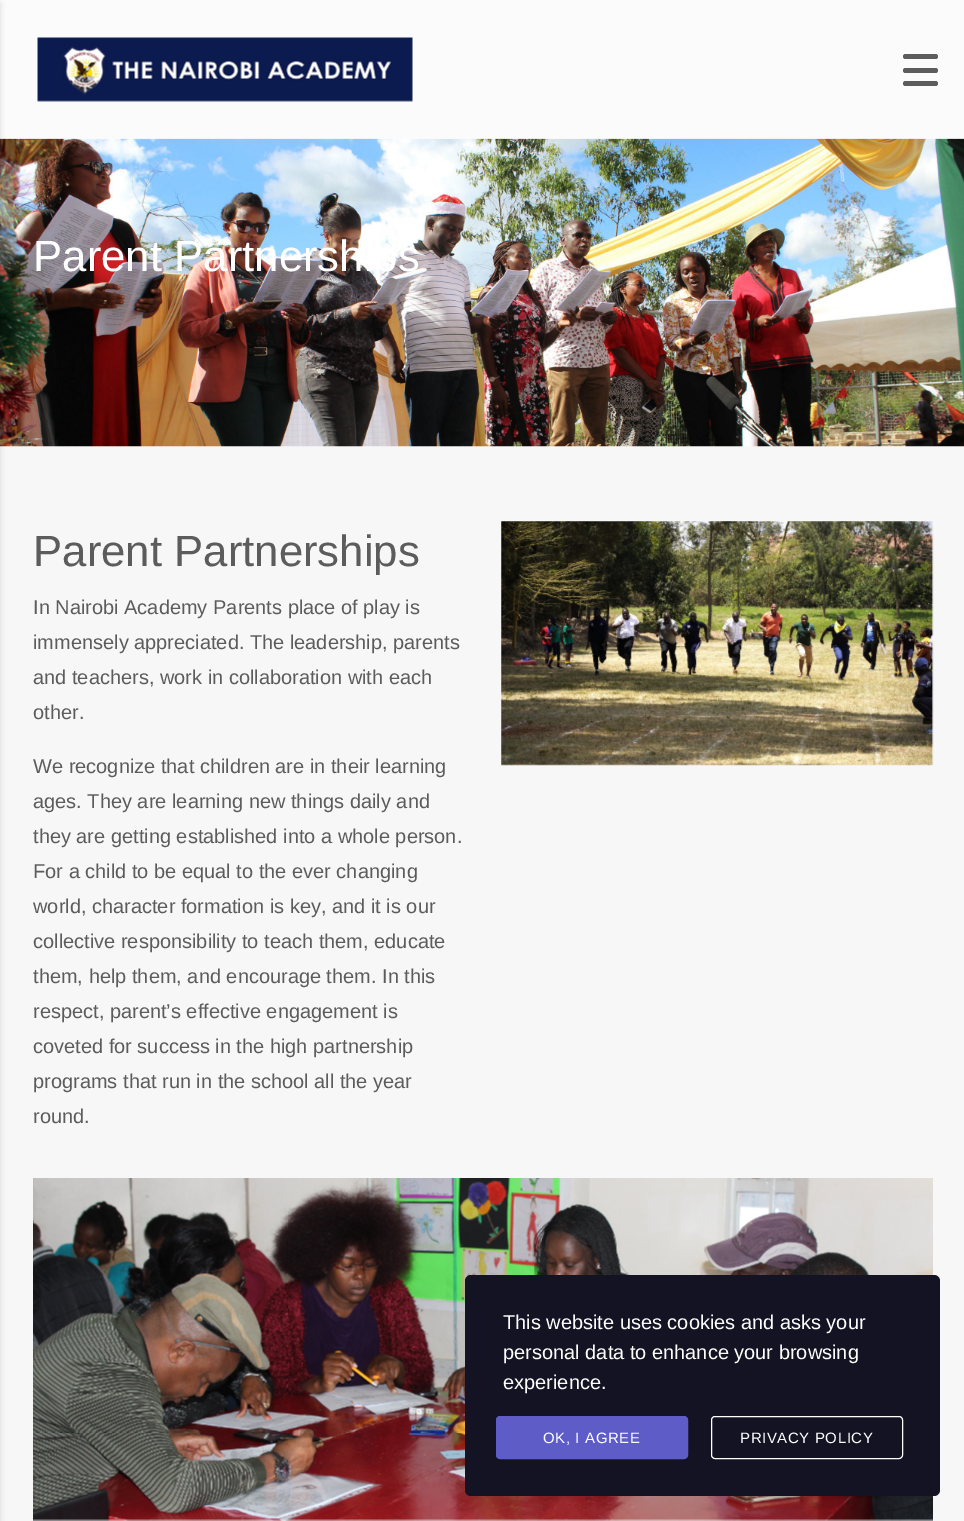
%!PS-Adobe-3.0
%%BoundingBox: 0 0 964 1521
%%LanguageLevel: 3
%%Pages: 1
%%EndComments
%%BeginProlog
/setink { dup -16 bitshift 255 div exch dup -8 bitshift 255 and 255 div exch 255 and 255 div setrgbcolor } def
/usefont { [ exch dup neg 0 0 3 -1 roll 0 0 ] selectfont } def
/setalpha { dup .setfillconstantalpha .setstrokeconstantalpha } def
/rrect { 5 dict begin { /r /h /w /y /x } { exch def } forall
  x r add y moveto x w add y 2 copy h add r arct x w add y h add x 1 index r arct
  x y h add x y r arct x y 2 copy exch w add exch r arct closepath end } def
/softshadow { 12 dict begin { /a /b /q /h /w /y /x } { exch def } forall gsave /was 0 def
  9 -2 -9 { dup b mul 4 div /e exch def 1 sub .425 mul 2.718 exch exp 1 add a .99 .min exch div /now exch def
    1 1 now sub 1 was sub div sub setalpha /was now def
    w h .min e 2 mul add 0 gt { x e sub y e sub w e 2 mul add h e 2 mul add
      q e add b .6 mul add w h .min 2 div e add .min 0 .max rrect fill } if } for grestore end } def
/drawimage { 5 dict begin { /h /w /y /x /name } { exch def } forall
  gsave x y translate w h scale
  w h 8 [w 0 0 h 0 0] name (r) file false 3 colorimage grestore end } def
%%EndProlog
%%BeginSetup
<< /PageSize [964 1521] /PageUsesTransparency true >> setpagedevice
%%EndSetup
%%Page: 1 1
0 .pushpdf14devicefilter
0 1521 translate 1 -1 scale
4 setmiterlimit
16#F7F7F7 setink
0 0 964 1521 rectfill
(img2.raw) 0 138 964 309 drawimage
0.5 setalpha
16#FFFFFF setink
0 0 964 139 rectfill
1 setalpha
(img1.raw) 37 37 376 65 drawimage
16#5C5C5C setink
903 54 35 5 2.5 rrect fill
903 68 35 5 2.5 rrect fill
903 81 35 5 2.5 rrect fill
16#000000 setink
-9 4 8 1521 0 3 0.2 softshadow
/LiberationSans-Regular 43.75 usefont
16#FFFFFF setink
33 271 moveto (Parent Partnerships) show
16#5C5C5C setink
33 566 moveto (Parent Partnerships) show
/LiberationSans-Regular 20 usefont
[
    [(In Nairobi Academy Parents place of play is) 33 614]
    [(immensely appreciated. The leadership, parents) 33 649]
    [(and teachers, work in collaboration with each) 33 684]
    [(other.) 33 719]
    [(We recognize that children are in their learning) 33 773]
    [(ages. They are learning new things daily and) 33 808]
    [(they are getting established into a whole person.) 33 843]
    [(For a child to be equal to the ever changing) 33 878]
    [(world, character formation is key, and it is our) 33 913]
    [(collective responsibility to teach them, educate) 33 948]
    [(them, help them, and encourage them. In this) 33 983]
    [(respect, parent’s effective engagement is) 33 1018]
    [(coveted for success in the high partnership) 33 1053]
    [(programs that run in the school all the year) 33 1088]
    [(round.) 33 1123]
] { aload pop moveto show } forall
(img3.raw) 501 521 433 245 drawimage
(img4.raw) 33 1178 900 343 drawimage
16#131323 setink
465 1275 475 221 6 rrect fill
16#FFFFFF setink
[
    [(This website uses cookies and asks your) 503 1329]
    [(personal data to enhance your browsing) 503 1359]
    [(experience.) 503 1389]
] { aload pop moveto show } forall
16#5E5CC7 setink
496.5 1416.5 191 42 3.5 rrect gsave fill grestore
stroke
/LiberationSans-Regular 15 usefont
16#FFFFFF setink
543 1443 moveto 0.6 0 (OK, I AGREE) ashow
711.5 1416.5 191 42 3.5 rrect stroke
740 1443 moveto 0.6 0 (PRIVACY POLICY) ashow
.poppdf14devicefilter showpage
%%EOF
